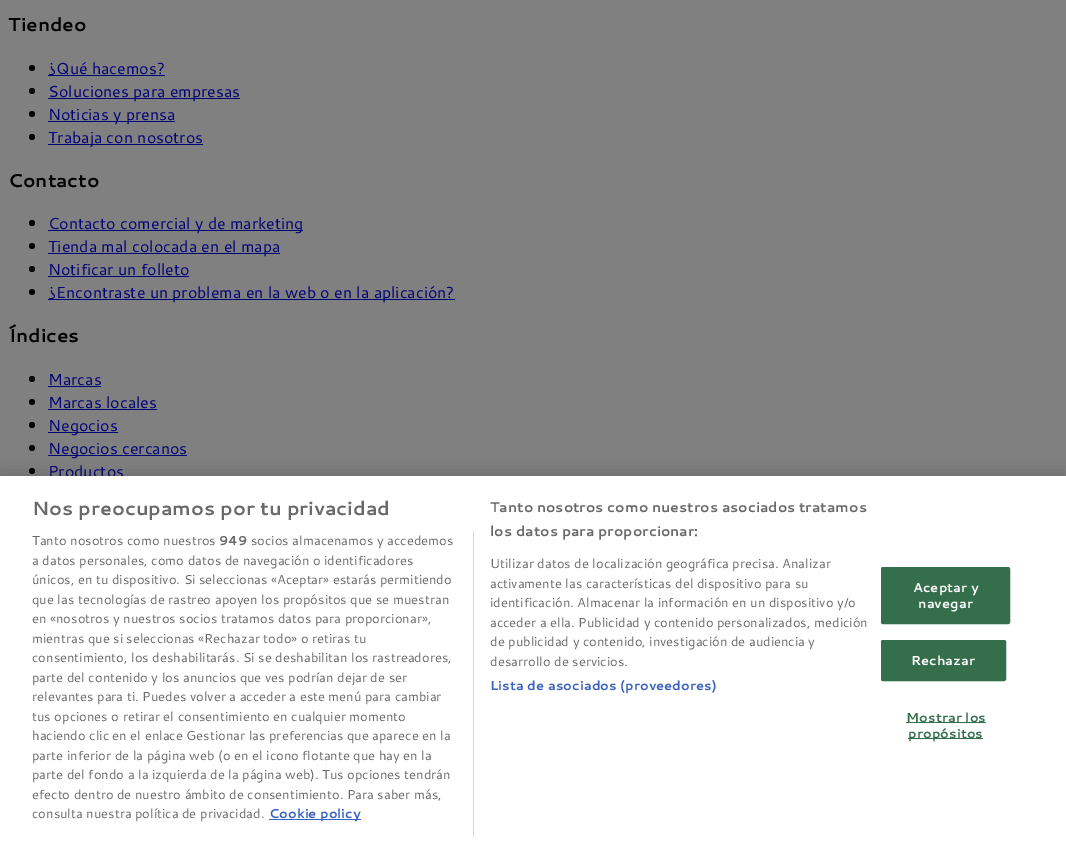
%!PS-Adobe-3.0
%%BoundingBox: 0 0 1066 847
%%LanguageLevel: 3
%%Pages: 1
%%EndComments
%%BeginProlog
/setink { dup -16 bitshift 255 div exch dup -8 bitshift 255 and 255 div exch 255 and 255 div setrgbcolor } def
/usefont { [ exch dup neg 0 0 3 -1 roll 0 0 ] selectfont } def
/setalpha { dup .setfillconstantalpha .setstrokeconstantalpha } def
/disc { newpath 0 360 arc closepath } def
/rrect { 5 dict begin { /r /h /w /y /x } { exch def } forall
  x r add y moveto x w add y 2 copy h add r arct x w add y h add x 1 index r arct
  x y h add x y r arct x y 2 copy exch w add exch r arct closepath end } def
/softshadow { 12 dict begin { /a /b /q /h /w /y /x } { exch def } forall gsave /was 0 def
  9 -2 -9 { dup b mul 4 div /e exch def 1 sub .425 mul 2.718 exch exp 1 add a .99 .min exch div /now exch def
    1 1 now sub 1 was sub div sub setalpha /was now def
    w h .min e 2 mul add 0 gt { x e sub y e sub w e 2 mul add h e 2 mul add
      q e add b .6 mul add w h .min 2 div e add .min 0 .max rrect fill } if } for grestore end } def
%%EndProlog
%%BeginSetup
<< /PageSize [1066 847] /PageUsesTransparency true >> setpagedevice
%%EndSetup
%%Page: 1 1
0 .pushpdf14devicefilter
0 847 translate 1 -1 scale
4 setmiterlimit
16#808080 setink
0 0 1066 847 rectfill
/Cantarell-Bold 18.75 usefont
16#000000 setink
8 31 moveto (Tiendeo) show
32 68 3 disc fill
16#000077 setink
48 75 117 1 rectfill
/Cantarell-Regular 16 usefont
48 74 moveto (¿Qué hacemos?) show
16#000000 setink
32 91 3 disc fill
16#000077 setink
48 98 192 1 rectfill
48 97 moveto (Soluciones para empresas) show
16#000000 setink
32 114 3 disc fill
16#000077 setink
48 121 127 1 rectfill
48 120 moveto (Noticias y prensa) show
16#000000 setink
32 137 3 disc fill
16#000077 setink
48 144 155 1 rectfill
48 143 moveto (Trabaja con nosotros) show
/Cantarell-Bold 18.75 usefont
16#000000 setink
8 187 moveto (Contacto) show
32 223 3 disc fill
16#000077 setink
48 230 255 1 rectfill
/Cantarell-Regular 16 usefont
48 229 moveto (Contacto comercial y de marketing) show
16#000000 setink
32 246 3 disc fill
16#000077 setink
48 253 232 1 rectfill
48 252 moveto (Tienda mal colocada en el mapa) show
16#000000 setink
32 269 3 disc fill
16#000077 setink
48 275 moveto (Notificar un folleto) show
48 276 141 1 rectfill
16#000000 setink
32 292 3 disc fill
16#000077 setink
48 299 407 1 rectfill
48 298 moveto (¿Encontraste un problema en la web o en la aplicación?) show
/Cantarell-Bold 18.75 usefont
16#000000 setink
8 342 moveto (Índices) show
32 379 3 disc fill
/Cantarell-Regular 16 usefont
16#000077 setink
48 385 moveto (Marcas) show
48 386 53 1 rectfill
16#000000 setink
32 402 3 disc fill
16#000077 setink
48 408 moveto (Marcas locales) show
48 409 109 1 rectfill
16#000000 setink
32 425 3 disc fill
16#000077 setink
48 432 70 1 rectfill
48 431 moveto (Negocios) show
16#000000 setink
32 448 3 disc fill
16#000077 setink
48 455 139 1 rectfill
48 454 moveto (Negocios cercanos) show
16#000000 setink
32 471 3 disc fill
16#000077 setink
48 477 moveto (Productos) show
16#000000 setink
0 476 1066 371 0 9 0.2 softshadow
16#FFFFFF setink
0 476 1066 371 rectfill
/Cantarell-Bold 19.25 usefont
16#696969 setink
32 515 moveto (Nos preocupamos por tu privacidad) show
/Cantarell-Bold 14.1 usefont
490 512 moveto (Tanto nosotros como nuestros asociados tratamos) show
490 536 moveto (los datos para proporcionar:) show
/Cantarell-Regular 13 usefont
[
    [(Utilizar datos de localización geográfica precisa. Analizar) 490 568]
    [(activamente las características del dispositivo para su) 490 588]
    [(identificación. Almacenar la información en un dispositivo y/o) 490 607]
    [(acceder a ella. Publicidad y contenido personalizados, medición) 490 627]
    [(de publicidad y contenido, investigación de audiencia y) 490 646]
    [(desarrollo de servicios.) 490 666]
] { aload pop moveto show } forall
/Cantarell-Bold 13 usefont
16#3860BE setink
490 690 moveto 0.1 0 (Lista de asociados \(proveedores\)) ashow
16#D8D8D8 setink
473 531 1 306 rectfill
/Cantarell-Regular 13 usefont
16#696969 setink
32 545 moveto (Tanto nosotros como nuestros) show
/Cantarell-Bold 13 usefont
219 545 moveto (949) show
/Cantarell-Regular 13 usefont
[
    [(socios almacenamos y accedemos) 251 545]
    [(a datos personales, como datos de navegación o identificadores) 32 565]
    [(únicos, en tu dispositivo. Si seleccionas «Aceptar» estarás permitiendo) 32 584]
    [(que las tecnologías de rastreo apoyen los propósitos que se muestran) 32 604]
    [(en «nosotros y nuestros socios tratamos datos para proporcionar»,) 32 623]
    [(mientras que si seleccionas «Rechazar todo» o retiras tu) 32 643]
    [(consentimiento, los deshabilitarás. Si se deshabilitan los rastreadores,) 32 662]
    [(parte del contenido y los anuncios que ves podrían dejar de ser) 32 682]
    [(relevantes para ti. Puedes volver a acceder a este menú para cambiar) 32 701]
    [(tus opciones o retirar el consentimiento en cualquier momento) 32 721]
    [(haciendo clic en el enlace Gestionar las preferencias que aparece en la) 32 740]
    [(parte inferior de la página web \(o en el icono flotante que hay en la) 32 760]
    [(parte del fondo a la izquierda de la página web\). Tus opciones tendrán) 32 779]
    [(efecto dentro de nuestro ámbito de consentimiento. Para saber más,) 32 799]
    [(consulta nuestra política de privacidad.) 32 818]
] { aload pop moveto show } forall
16#3860BE setink
269 819 92 1 rectfill
/Cantarell-Bold 13 usefont
269 818 moveto (Cookie policy) show
16#346E4A setink
881.5 567.5 128 56 1.5 rrect gsave fill grestore
stroke
16#FFFFFF setink
913 592 moveto 0.1 0 (Aceptar y) ashow
918 608 moveto 0.1 0 (navegar) ashow
16#346E4A setink
881.5 640.5 124 40 1.5 rrect gsave fill grestore
stroke
16#FFFFFF setink
911 665 moveto 0.1 0 (Rechazar) ashow
16#346E4A setink
906 722 80 1 rectfill
906 722 moveto 0.1 0 (Mostrar los) ashow
908 738 75 1 rectfill
908 738 moveto 0.1 0 (propósitos) ashow
.poppdf14devicefilter showpage
%%EOF
